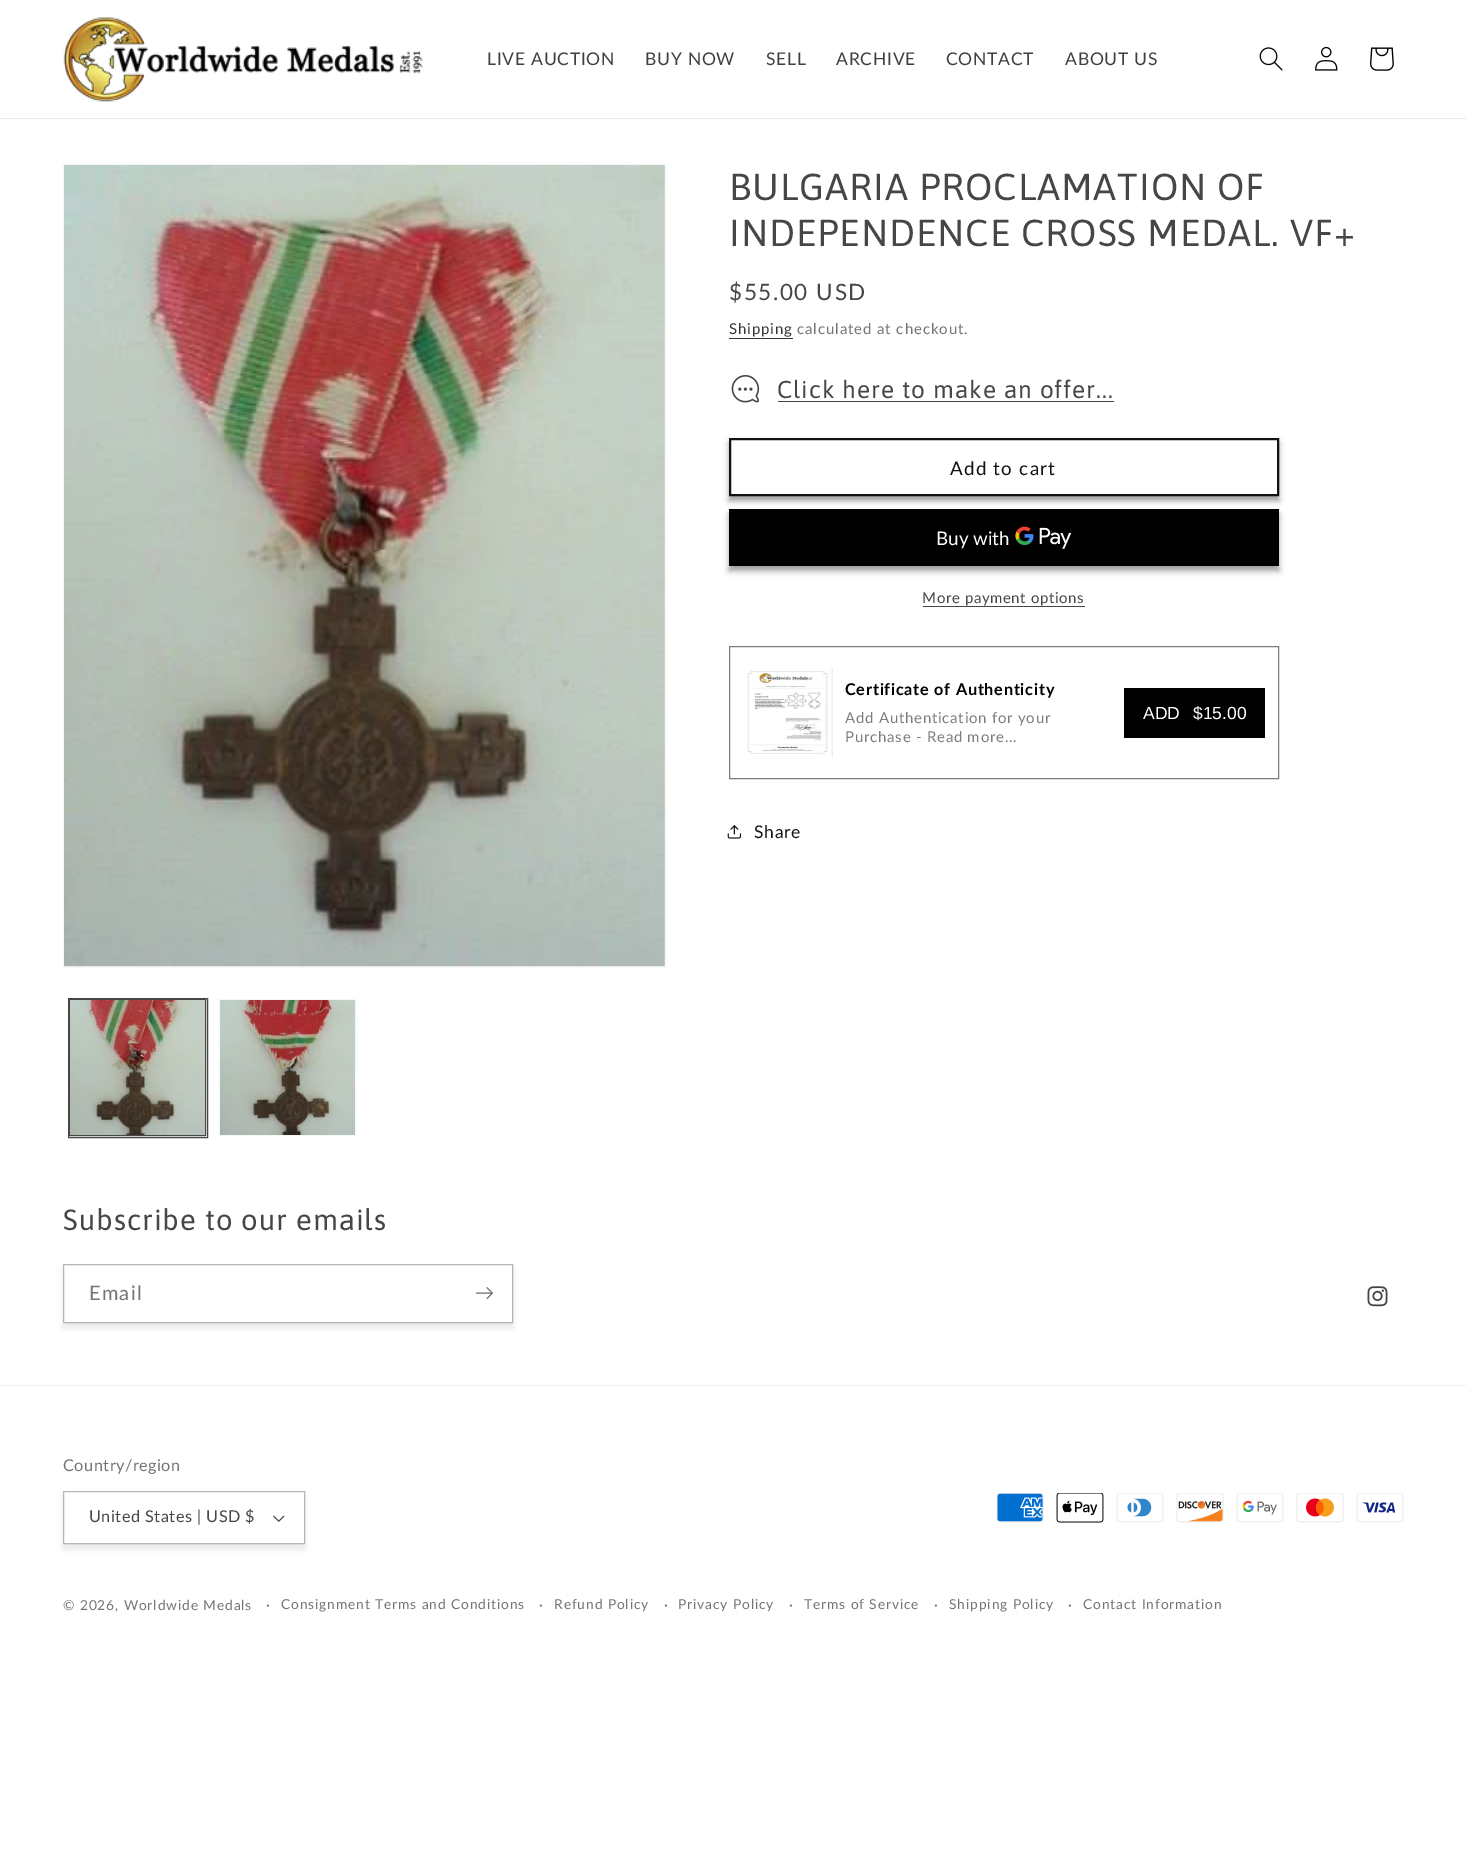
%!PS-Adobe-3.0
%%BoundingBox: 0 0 1466 1861
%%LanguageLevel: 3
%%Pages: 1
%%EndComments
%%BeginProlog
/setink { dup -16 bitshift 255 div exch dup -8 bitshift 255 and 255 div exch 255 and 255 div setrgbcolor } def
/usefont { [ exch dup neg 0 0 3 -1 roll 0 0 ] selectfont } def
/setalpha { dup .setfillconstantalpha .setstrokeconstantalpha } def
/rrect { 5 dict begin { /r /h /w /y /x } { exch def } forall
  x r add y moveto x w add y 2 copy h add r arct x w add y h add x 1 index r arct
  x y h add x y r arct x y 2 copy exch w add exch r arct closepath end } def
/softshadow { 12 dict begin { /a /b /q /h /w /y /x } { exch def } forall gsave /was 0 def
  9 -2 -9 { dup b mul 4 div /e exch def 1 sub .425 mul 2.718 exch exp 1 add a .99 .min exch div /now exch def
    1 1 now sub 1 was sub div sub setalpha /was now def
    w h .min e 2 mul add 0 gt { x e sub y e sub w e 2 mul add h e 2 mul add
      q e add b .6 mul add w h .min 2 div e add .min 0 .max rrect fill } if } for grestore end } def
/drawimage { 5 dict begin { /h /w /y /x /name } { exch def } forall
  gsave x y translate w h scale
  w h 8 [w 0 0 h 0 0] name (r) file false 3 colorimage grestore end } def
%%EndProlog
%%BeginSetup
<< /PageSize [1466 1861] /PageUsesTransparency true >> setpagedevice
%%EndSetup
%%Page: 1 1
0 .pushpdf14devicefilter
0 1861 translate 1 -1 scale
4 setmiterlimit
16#FFFFFF setink
0 0 1466 1861 rectfill
16#EBEBEB setink
0 118 1466 1 rectfill
(img1.raw) 63 17 360 85 drawimage
/Lato-Regular 17.5 usefont
16#404040 setink
487 65 moveto 0.75 0 (LIVE AUCTION) ashow
645 65 moveto 0.75 0 (BUY NOW) ashow
766 65 moveto 0.75 0 (SELL) ashow
836 65 moveto 0.75 0 (ARCHIVE) ashow
946 65 moveto 0.75 0 (CONTACT) ashow
1065 65 moveto 0.75 0 (ABOUT US) ashow
(img2.raw) 1259 47 24 24 drawimage
(img3.raw) 1315 46 23 25 drawimage
(img4.raw) 1370 47 24 24 drawimage
16#F6F6F6 setink
63.5 164.5 602 803 rectstroke
(img5.raw) 64 165 601 802 drawimage
16#464646 setink
68.5 998.5 139 139 rectstroke
69.5 999.5 136 136 rectstroke
(img6.raw) 70 1000 135 135 drawimage
16#F6F6F6 setink
219.5 999.5 136 136 rectstroke
(img7.raw) 220 1000 135 135 drawimage
/Asap-Regular 37.5 usefont
16#464646 setink
729 200 moveto 1 0 (BULGARIA PROCLAMATION OF) ashow
729 246 moveto 1 0 (INDEPENDENCE CROSS MEDAL. VF+) ashow
/Lato-Regular 22.5 usefont
729 300 moveto 1.6 0 ($55.00 USD) ashow
/Lato-Regular 15 usefont
16#363636 setink
729 334 moveto 0.9 0 (Shipping) ashow
729 338 64 1 rectfill
16#747474 setink
797 334 moveto 0.9 0 (calculated at checkout.) ashow
(img8.raw) 731 375 29 28 drawimage
/Asap-Regular 24.4 usefont
16#464646 setink
777 398 moveto 1 0 (Click here to make an offer...) ashow
778 401 336 1 rectfill
16#121212 setink
729 443 550 58 0 3 0.4 softshadow
16#FFFFFF setink
731 440 546 54 rectfill
16#121212 setink
2 setlinewidth
730 439 548 56 rectstroke
/Lato-Regular 18.75 usefont
950 475 moveto 1.25 0 (Add to cart) ashow
729 514 550 57 0 3 0.4 softshadow
16#000000 setink
729 509 550 57 rectfill
16#FFFFFF setink
936 545 moveto (Buy with) show
(img9.raw) 1015 526 56 23 drawimage
/Lato-Regular 15 usefont
16#464646 setink
922 603 moveto 0.6 0 (More payment options) ashow
923 606 162 1 rectfill
16#7D7D7D setink
1 setlinewidth
729.5 646.5 549 132 rectstroke
(img10.raw) 747 667 86 91 drawimage
/Lato-Bold 16.25 usefont
16#000000 setink
845 695 moveto 0.75 0 (Certificate of Authenticity) ashow
/Lato-Regular 15 usefont
16#7D7D7D setink
845 723 moveto 0.75 0 (Add Authentication for your) ashow
845 742 moveto 0.75 0 (Purchase - Read more...) ashow
16#000000 setink
1124 688 141 50 rectfill
/LiberationSans-Regular 17.5 usefont
16#FFFFFF setink
1143 719 moveto (ADD) show
1193 719 moveto ($15.00) show
(img11.raw) 727 825 15 14 drawimage
/Lato-Regular 17.5 usefont
16#121212 setink
754 838 moveto 0.75 0 (Share) ashow
/Asap-Regular 29.25 usefont
16#464646 setink
63 1230 moveto 1 0 (Subscribe to our emails) ashow
gsave
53 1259 moveto 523 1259 lineto 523 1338 lineto 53 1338 lineto closepath 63 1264 moveto 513 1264 lineto 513 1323 lineto 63 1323 lineto closepath eoclip newpath
16#121212 setink
63 1269 450 59 0 3 0.1 softshadow
grestore
0.4 setalpha
63.5 1264.5 449 58 rectstroke
/Lato-Regular 20 usefont
1 setalpha
16#747474 setink
89 1300 moveto 1.25 0 (Email) ashow
(img12.raw) 475 1287 18 13 drawimage
(img13.raw) 1367 1286 21 21 drawimage
16#F0F0F0 setink
0 1385 1466 1 rectfill
/Lato-Regular 16.25 usefont
16#747474 setink
63 1471 moveto 0.5 0 (Country/region) ashow
16#121212 setink
63 1496 242 53 0 3 0.1 softshadow
16#FFFFFF setink
64 1492 240 51 rectfill
(img14.raw) 273 1515 12 7 drawimage
16#B5B5B5 setink
63.5 1491.5 241 52 rectstroke
16#464646 setink
89 1522 moveto 0.5 0 (United States | USD $) ashow
(img15.raw) 996 1493 48 30 drawimage
(img16.raw) 1056 1493 48 30 drawimage
(img17.raw) 1116 1493 48 30 drawimage
(img18.raw) 1176 1493 48 30 drawimage
(img19.raw) 1236 1493 48 30 drawimage
(img20.raw) 1296 1493 48 30 drawimage
(img21.raw) 1356 1493 48 30 drawimage
/Lato-Regular 13.75 usefont
16#747474 setink
63 1610 moveto 0.9 0 (© 2026, Worldwide Medals) ashow
/Lato-Regular 15 usefont
266 1610 moveto 0.9 0 (·) ashow
/Lato-Regular 13.75 usefont
281 1609 moveto 0.9 0 (Consignment Terms and Conditions) ashow
/Lato-Regular 15 usefont
539 1610 moveto 0.9 0 (·) ashow
/Lato-Regular 13.75 usefont
554 1609 moveto 0.9 0 (Refund Policy) ashow
/Lato-Regular 15 usefont
664 1610 moveto 0.9 0 (·) ashow
/Lato-Regular 13.75 usefont
678 1609 moveto 0.9 0 (Privacy Policy) ashow
/Lato-Regular 15 usefont
789 1610 moveto 0.9 0 (·) ashow
/Lato-Regular 13.75 usefont
804 1609 moveto 0.9 0 (Terms of Service) ashow
/Lato-Regular 15 usefont
934 1610 moveto 0.9 0 (·) ashow
/Lato-Regular 13.75 usefont
949 1609 moveto 0.9 0 (Shipping Policy) ashow
/Lato-Regular 15 usefont
1068 1610 moveto 0.9 0 (·) ashow
/Lato-Regular 13.75 usefont
1083 1609 moveto 0.9 0 (Contact Information) ashow
.poppdf14devicefilter showpage
%%EOF
